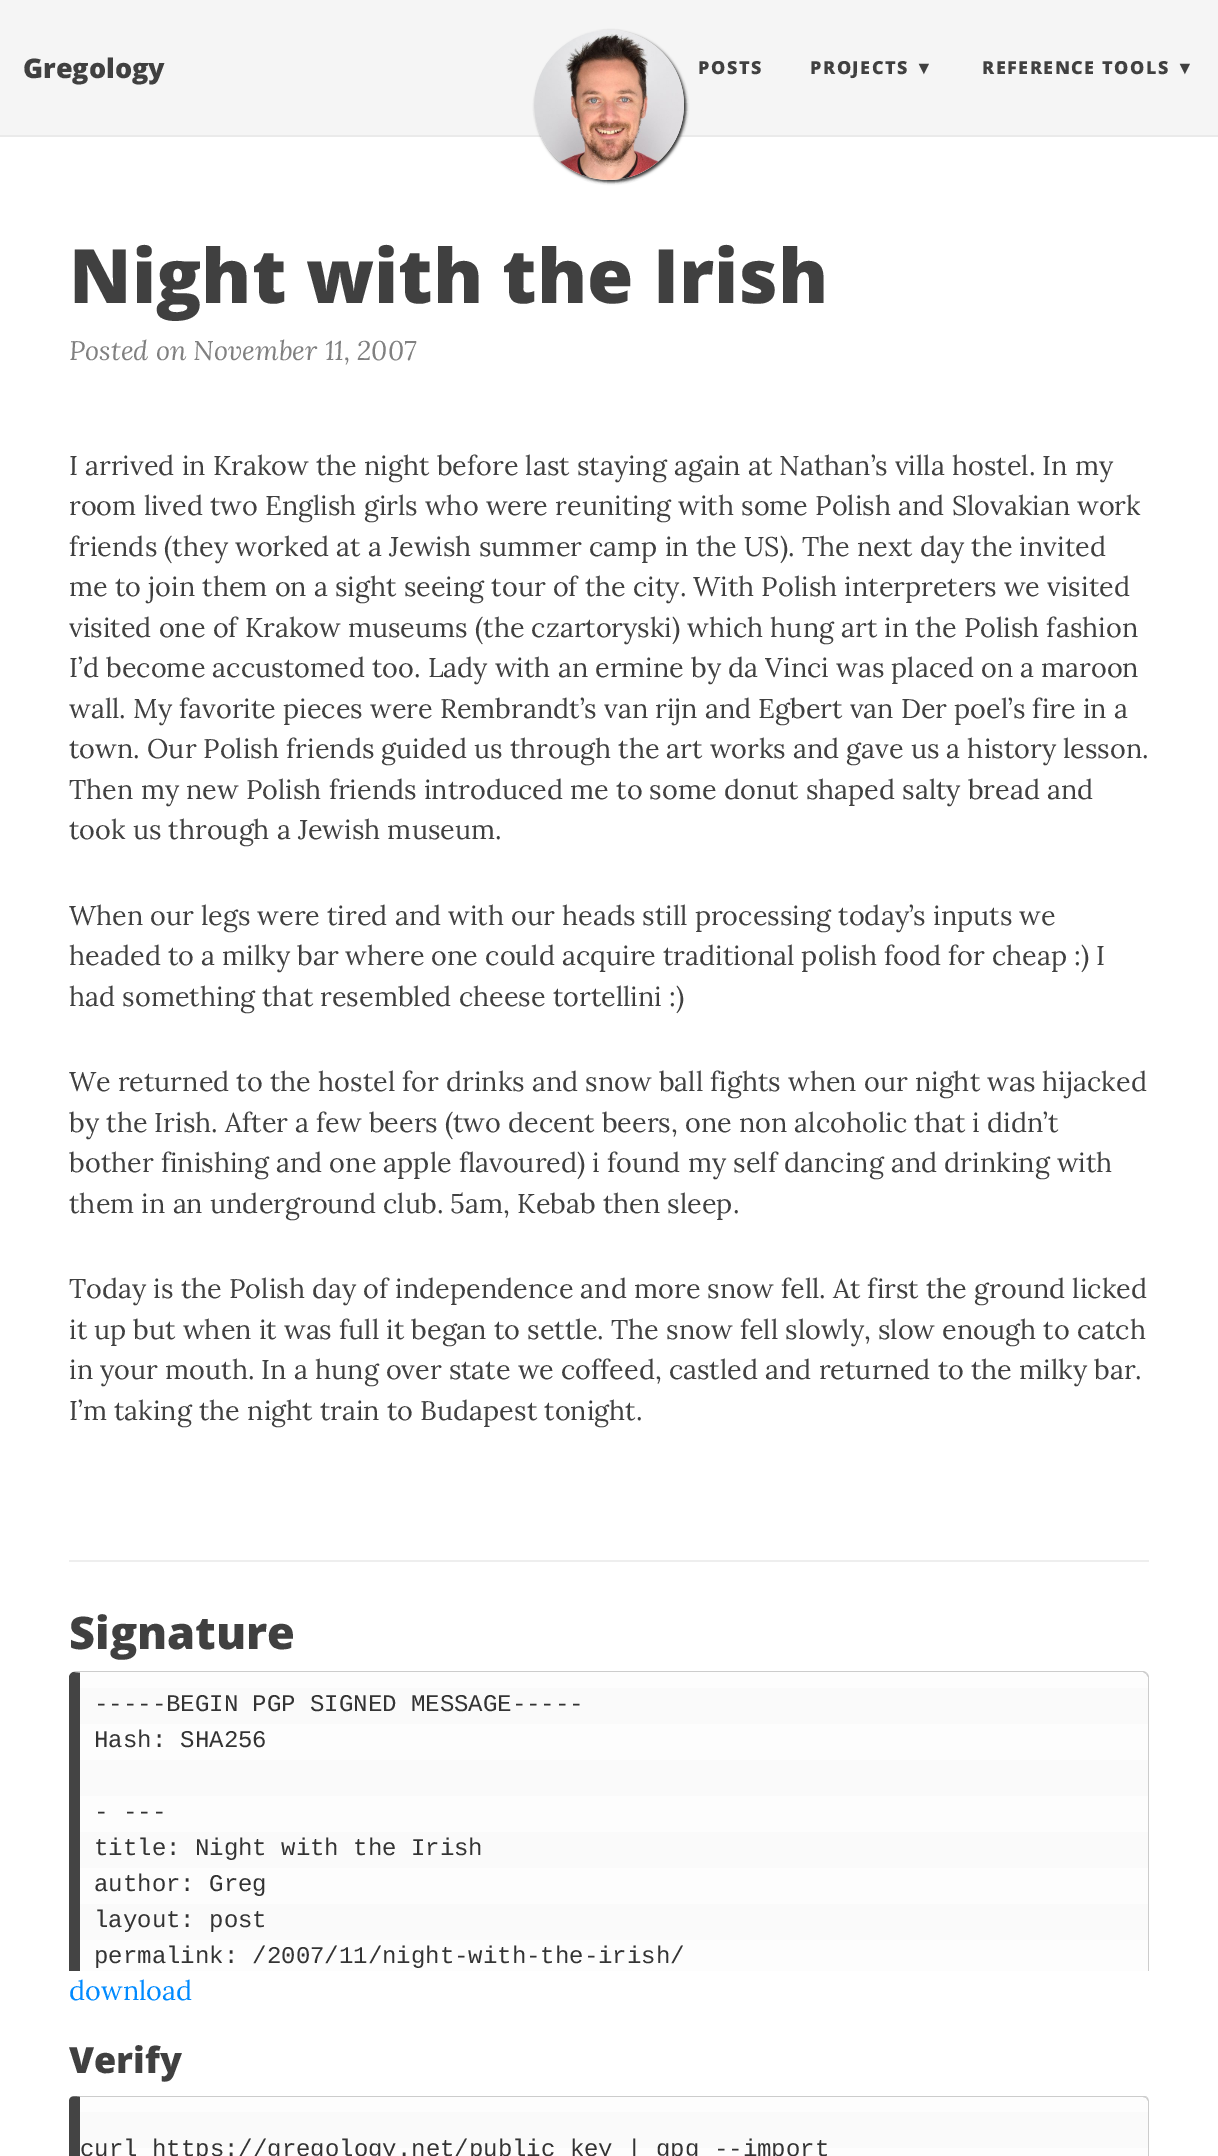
%!PS-Adobe-3.0
%%BoundingBox: 0 0 1218 2156
%%LanguageLevel: 3
%%Pages: 1
%%EndComments
%%BeginProlog
/setink { dup -16 bitshift 255 div exch dup -8 bitshift 255 and 255 div exch 255 and 255 div setrgbcolor } def
/usefont { [ exch dup neg 0 0 3 -1 roll 0 0 ] selectfont } def
/setalpha { dup .setfillconstantalpha .setstrokeconstantalpha } def
/rrect { 5 dict begin { /r /h /w /y /x } { exch def } forall
  x r add y moveto x w add y 2 copy h add r arct x w add y h add x 1 index r arct
  x y h add x y r arct x y 2 copy exch w add exch r arct closepath end } def
/softshadow { 12 dict begin { /a /b /q /h /w /y /x } { exch def } forall gsave /was 0 def
  9 -2 -9 { dup b mul 4 div /e exch def 1 sub .425 mul 2.718 exch exp 1 add a .99 .min exch div /now exch def
    1 1 now sub 1 was sub div sub setalpha /was now def
    w h .min e 2 mul add 0 gt { x e sub y e sub w e 2 mul add h e 2 mul add
      q e add b .6 mul add w h .min 2 div e add .min 0 .max rrect fill } if } for grestore end } def
/drawimage { 5 dict begin { /h /w /y /x /name } { exch def } forall
  gsave x y translate w h scale
  w h 8 [w 0 0 h 0 0] name (r) file false 3 colorimage grestore end } def
%%EndProlog
%%BeginSetup
<< /PageSize [1218 2156] /PageUsesTransparency true >> setpagedevice
%%EndSetup
%%Page: 1 1
0 .pushpdf14devicefilter
0 2156 translate 1 -1 scale
4 setmiterlimit
16#FFFFFF setink
0 0 1218 2156 rectfill
16#F5F5F5 setink
0 0 1218 135 rectfill
16#EAEAEA setink
0 135 1218 2 rectfill
/OpenSans-ExtraBold 27 usefont
16#404040 setink
23 78 moveto (Gregology) show
16#000000 setink
536 32 150 150 75 1.5 0.8 softshadow
(img1.raw) 534 30 150 150 drawimage
/OpenSans-ExtraBold 18 usefont
16#404040 setink
698 74 moveto 1.5 0 (POSTS) ashow
810 74 moveto 1.5 0 (PROJECTS) ashow
/LiberationSans-Bold 18 usefont
915 74 moveto 1.5 0 (▼) ashow
/OpenSans-ExtraBold 18 usefont
982 74 moveto 1.5 0 (REFERENCE TOOLS) ashow
/LiberationSans-Bold 18 usefont
1176 74 moveto 1.5 0 (▼) ashow
/OpenSans-ExtraBold 75 usefont
69 303 moveto (Night with the Irish) show
/Lora-Italic 27 usefont
16#808080 setink
69 360 moveto (Posted on November 11, 2007) show
/Lora-Regular 27 usefont
16#404040 setink
[
    [(I arrived in Krakow the night before last staying again at Nathan’s villa hostel. In my) 69 475]
    [(room lived two English girls who were reuniting with some Polish and Slovakian work) 69 515]
    [(friends \(they worked at a Jewish summer camp in the US\). The next day the invited) 69 556]
    [(me to join them on a sight seeing tour of the city. With Polish interpreters we visited) 69 596]
    [(visited one of Krakow museums \(the czartoryski\) which hung art in the Polish fashion) 69 637]
    [(I’d become accustomed too. Lady with an ermine by da Vinci was placed on a maroon) 69 677]
    [(wall. My favorite pieces were Rembrandt’s van rijn and Egbert van Der poel’s fire in a) 69 718]
    [(town. Our Polish friends guided us through the art works and gave us a history lesson.) 69 758]
    [(Then my new Polish friends introduced me to some donut shaped salty bread and) 69 799]
    [(took us through a Jewish museum.) 69 839]
    [(When our legs were tired and with our heads still processing today’s inputs we) 69 925]
    [(headed to a milky bar where one could acquire traditional polish food for cheap :\) I) 69 965]
    [(had something that resembled cheese tortellini :\)) 69 1006]
    [(We returned to the hostel for drinks and snow ball fights when our night was hijacked) 69 1091]
    [(by the Irish. After a few beers \(two decent beers, one non alcoholic that i didn’t) 69 1132]
    [(bother finishing and one apple flavoured\) i found my self dancing and drinking with) 69 1172]
    [(them in an underground club. 5am, Kebab then sleep.) 69 1213]
    [(Today is the Polish day of independence and more snow fell. At first the ground licked) 69 1298]
    [(it up but when it was full it began to settle. The snow fell slowly, slow enough to catch) 69 1339]
    [(in your mouth. In a hung over state we coffeed, castled and returned to the milky bar.) 69 1379]
    [(I’m taking the night train to Budapest tonight.) 69 1420]
] { aload pop moveto show } forall
16#EEEEEE setink
69 1560 1080 2 rectfill
/OpenSans-ExtraBold 45 usefont
16#404040 setink
69 1649 moveto (Signature) show
gsave
69 1671 1080 300 rectclip
16#FAFAFA setink
80 1672 moveto 1143 1672 lineto 1145 1672 1148 1675 1148 1677 curveto 1148 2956 lineto 1148 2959 1145 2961 1143 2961 curveto 80 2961 lineto closepath fill
grestore
16#FDFDFD setink
1148 1688 moveto 80 1688 lineto 80 1672 lineto 1143 1672 lineto 1150 1673 1148 1684 1148 1688 curveto closepath fill
[
    [80 1724 1068 36 16#FDFDFD]
    [80 1796 1068 36 16#FDFDFD]
    [80 1868 1068 36 16#FDFDFD]
    [80 1940 1068 31 16#FDFDFD]
] { aload pop setink rectfill } forall
16#CCCCCC setink
75 1671 moveto 73 1672 lineto 80 1673 lineto 80 1672 lineto 1143 1672 lineto 1146 1674 lineto 1147 1673 lineto 1146 1672 1144 1671 1143 1671 curveto closepath fill
gsave
69 1671 1080 300 rectclip
1149 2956 moveto 1149 1677 lineto 1149 1676 1148 1674 1147 1673 curveto 1146 1674 lineto 1148 1677 lineto 1148 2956 lineto 1148 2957 1147 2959 1146 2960 curveto 1147 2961 lineto 1148 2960 1149 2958 1149 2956 curveto closepath fill
16#444444 setink
69 1677 moveto 69 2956 lineto 69 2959 71 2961 74 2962 curveto 80 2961 lineto 80 1673 lineto 73 1672 lineto 71 1673 69 1675 69 1677 curveto closepath fill
grestore
/LiberationMono-Regular 24 usefont
16#333333 setink
[
    [(-----BEGIN PGP SIGNED MESSAGE-----) 94 1711]
    [(Hash: SHA256) 94 1747]
    [(- ---) 94 1819]
    [(title: Night with the Irish) 94 1855]
    [(author: Greg) 94 1891]
    [(layout: post) 94 1927]
    [(permalink: /2007/11/night-with-the-irish/) 94 1963]
] { aload pop moveto show } forall
/Lora-Regular 27 usefont
16#008AFF setink
69 2000 moveto (download) show
/OpenSans-ExtraBold 36 usefont
16#404040 setink
69 2073 moveto (Verify) show
16#FAFAFA setink
80 2097 moveto 1143 2097 lineto 1145 2097 1148 2099 1148 2102 curveto 1148 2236 lineto 1148 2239 1145 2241 1143 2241 curveto 80 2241 lineto closepath fill
16#FDFDFD setink
1148 2112 moveto 80 2112 lineto 80 2097 lineto 1143 2097 lineto 1150 2097 1148 2108 1148 2112 curveto closepath fill
80 2148 1068 8 rectfill
16#CCCCCC setink
75 2096 moveto 74 2096 lineto 80 2097 lineto 1143 2097 lineto 1146 2098 lineto 1147 2097 lineto 1146 2096 1144 2096 1143 2096 curveto closepath fill
1147 2097 moveto 1148 2098 1149 2100 1149 2102 curveto 1149 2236 lineto 1149 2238 1148 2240 1147 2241 curveto 1146 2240 lineto 1147 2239 1148 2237 1148 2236 curveto 1148 2101 lineto 1146 2098 lineto closepath fill
16#444444 setink
69 2102 moveto 69 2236 lineto 69 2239 71 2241 74 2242 curveto 80 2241 lineto 80 2097 lineto 75 2096 69 2095 69 2102 curveto closepath fill
/LiberationMono-Regular 24 usefont
16#333333 setink
80 2156 moveto (curl https://gregology.net/public_key | gpg --import) show
.poppdf14devicefilter showpage
%%EOF
